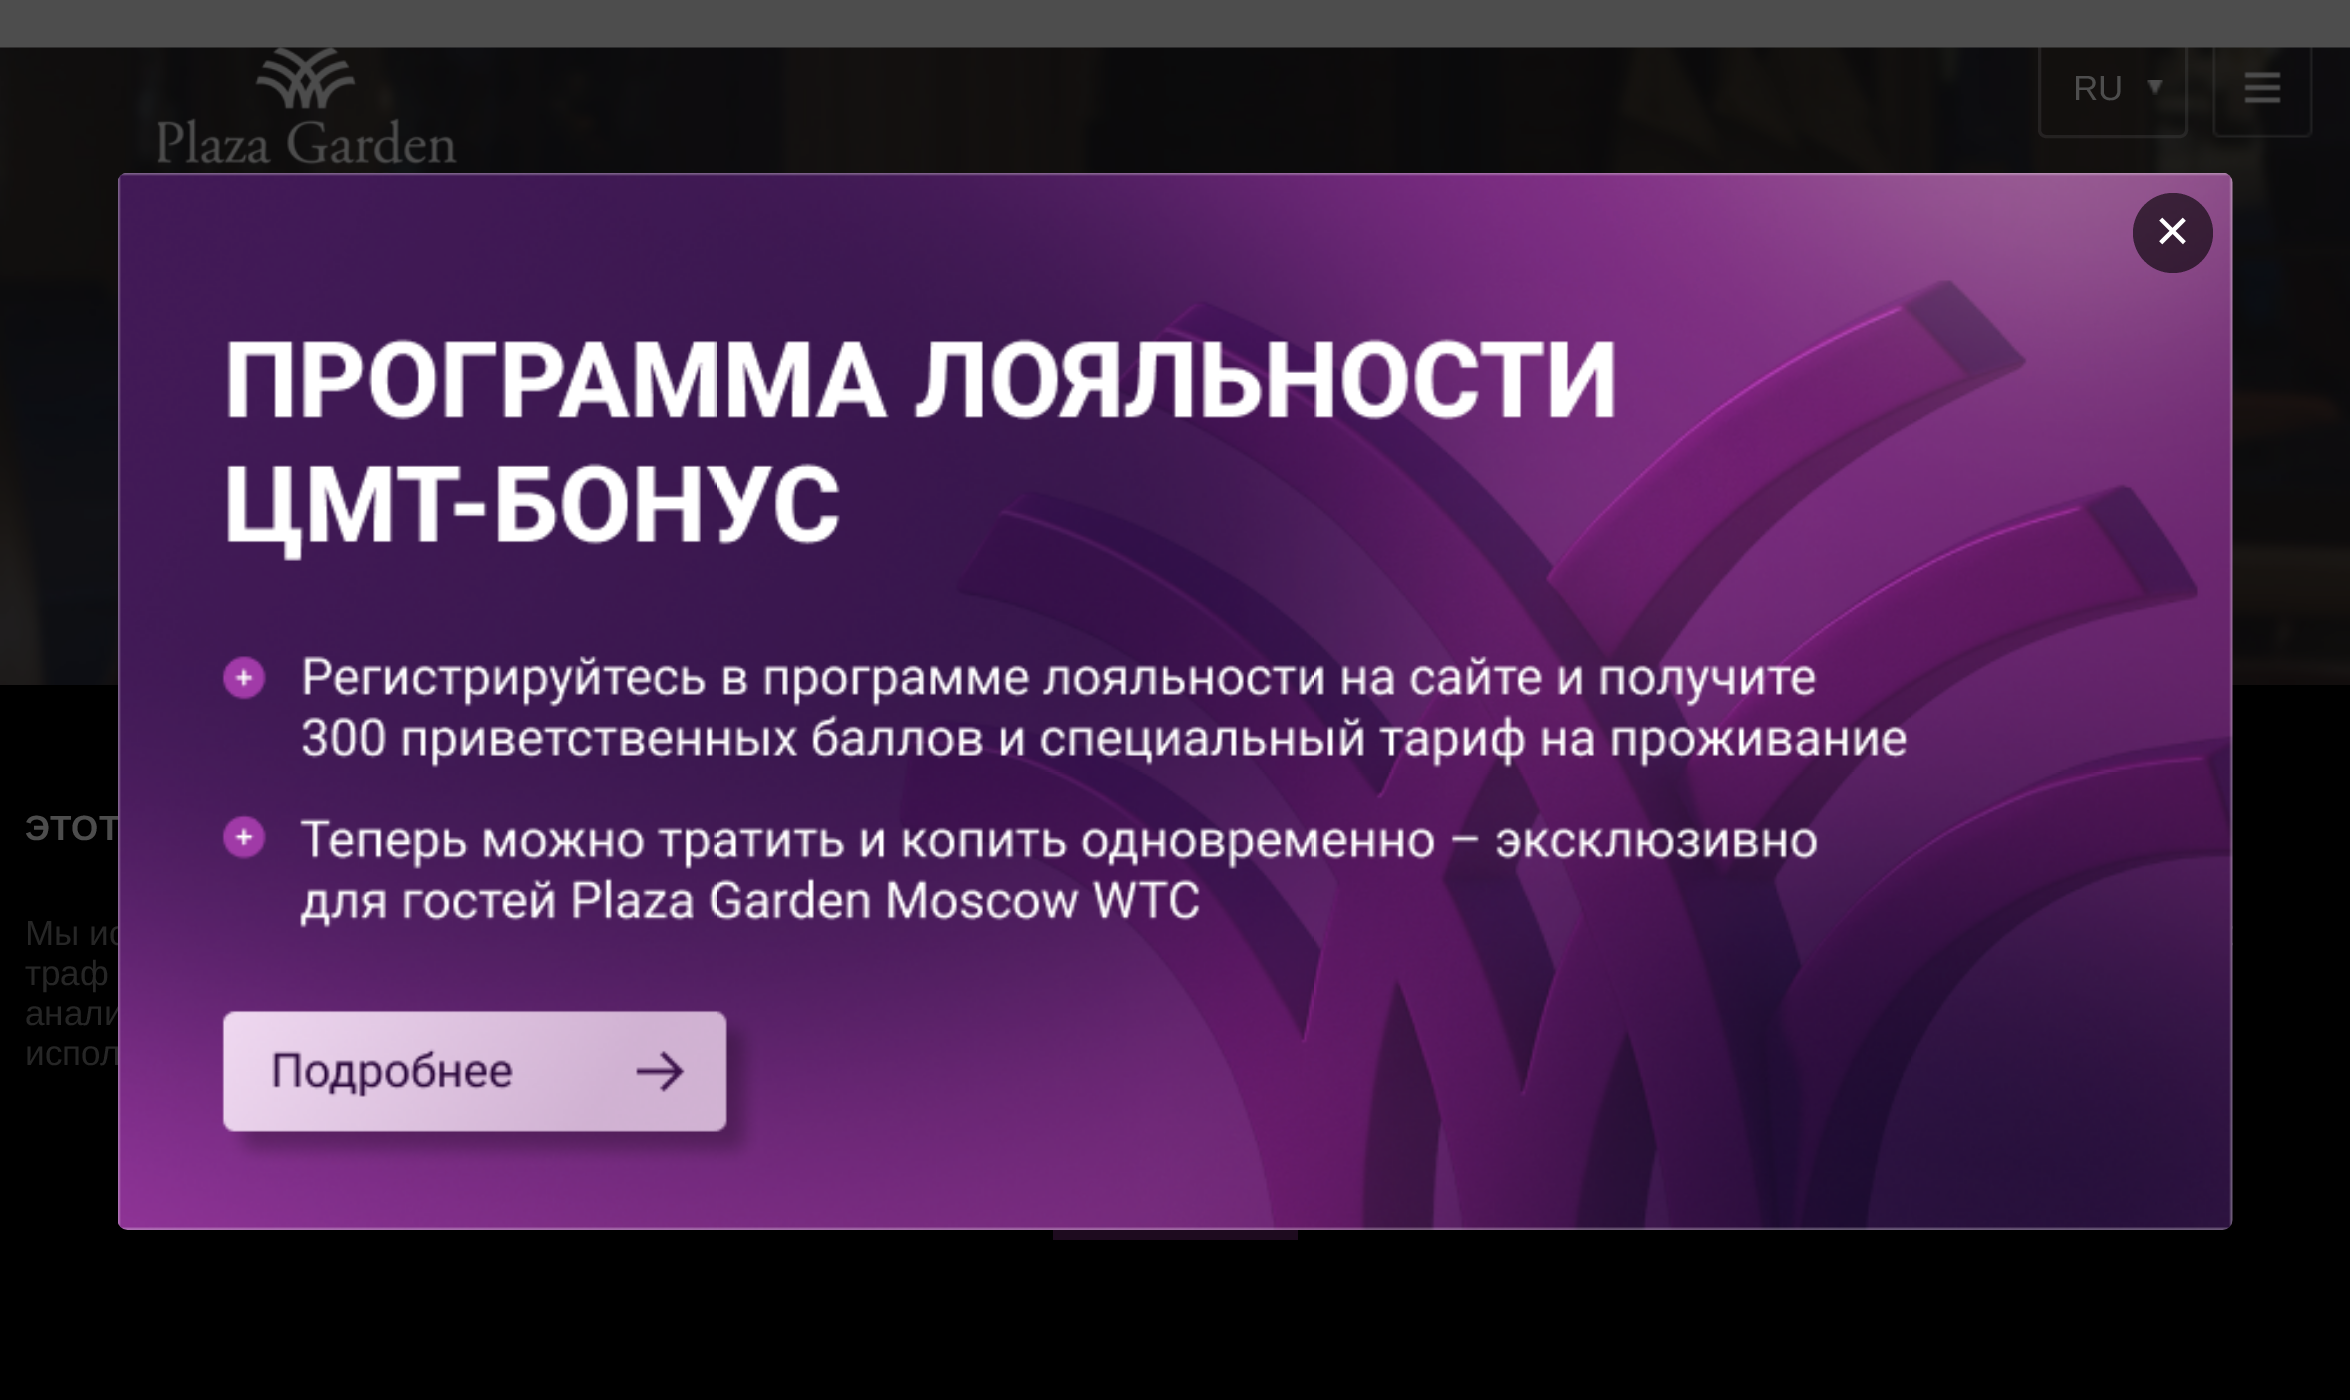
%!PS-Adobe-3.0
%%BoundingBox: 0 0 2350 1400
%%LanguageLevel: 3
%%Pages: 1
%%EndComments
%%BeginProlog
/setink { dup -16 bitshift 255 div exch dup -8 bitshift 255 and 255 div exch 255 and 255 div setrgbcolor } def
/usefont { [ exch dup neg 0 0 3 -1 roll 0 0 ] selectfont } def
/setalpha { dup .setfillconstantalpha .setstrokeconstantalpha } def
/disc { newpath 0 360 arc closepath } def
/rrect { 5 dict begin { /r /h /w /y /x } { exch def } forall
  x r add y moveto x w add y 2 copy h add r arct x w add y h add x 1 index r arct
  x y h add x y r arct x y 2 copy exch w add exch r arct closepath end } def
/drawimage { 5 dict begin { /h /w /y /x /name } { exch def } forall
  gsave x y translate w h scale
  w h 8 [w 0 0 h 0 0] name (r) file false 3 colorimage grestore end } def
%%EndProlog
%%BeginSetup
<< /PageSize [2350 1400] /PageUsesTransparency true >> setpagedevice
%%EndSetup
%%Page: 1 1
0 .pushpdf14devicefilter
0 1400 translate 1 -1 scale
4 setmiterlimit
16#4D4D4D setink
0 0 2350 1400 rectfill
(img1.raw) 0 47 2350 638 drawimage
(img2.raw) 157 47 301 126 drawimage
0.3 setalpha
3 setlinewidth
2039.5 39.5 147 97 6.5 rrect stroke
/LiberationSans-Regular 35 usefont
1 setalpha
2073 100 moveto (RU) show
(img3.raw) 2147 80 16 15 drawimage
(img4.raw) 2212 47 101 91 drawimage
16#000000 setink
0 685 2350 715 rectfill
/LiberationSans-Bold 35 usefont
16#4D4D4D setink
25 840 moveto (ЭТОТ) show
/LiberationSans-Regular 35 usefont
16#262626 setink
[
    [(Мы ис) 25 945]
    [(анали) 25 1025]
    [(испол) 25 1065]
] { aload pop moveto show } forall
(img5.raw) 118 173 2115 1057 drawimage
0.6 setalpha
16#000000 setink
2173 233 40 disc fill
/LiberationSans-Regular 60 usefont
1 setalpha
16#FFFFFF setink
2155 251 moveto (×) show
/LiberationSans-Regular 35 usefont
16#262626 setink
25 985 moveto (траф) show
16#1E0B1F setink
1053 1230 245 10 rectfill
.poppdf14devicefilter showpage
%%EOF
